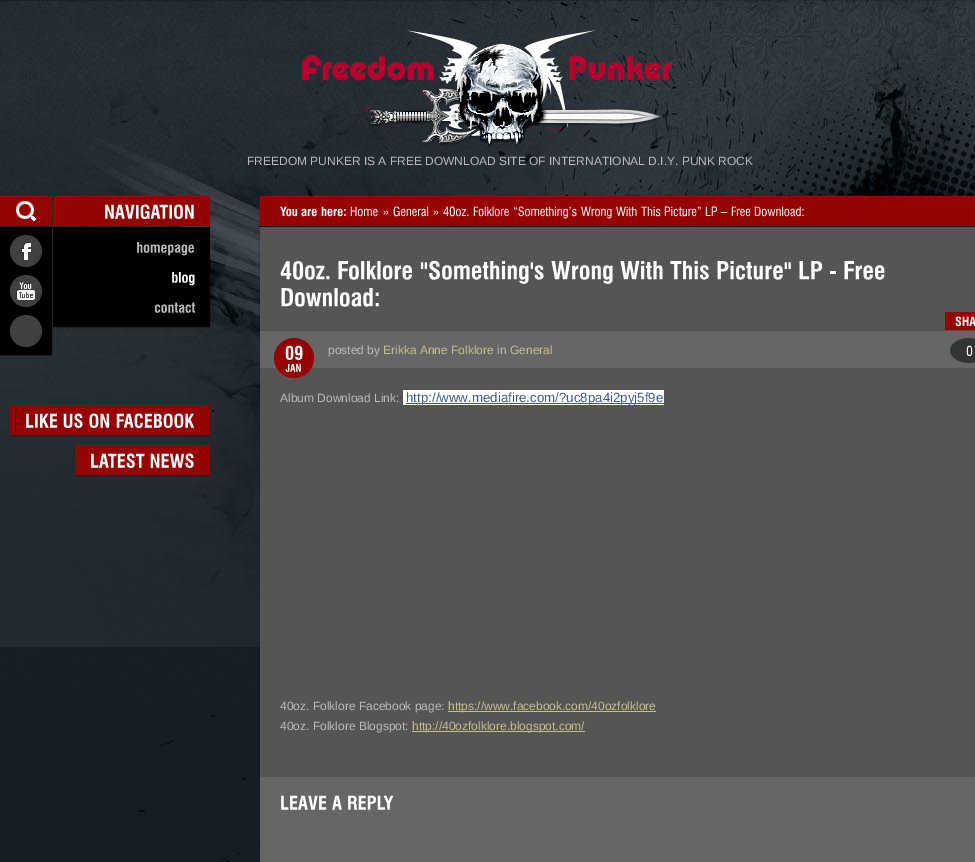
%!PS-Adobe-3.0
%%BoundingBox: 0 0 975 862
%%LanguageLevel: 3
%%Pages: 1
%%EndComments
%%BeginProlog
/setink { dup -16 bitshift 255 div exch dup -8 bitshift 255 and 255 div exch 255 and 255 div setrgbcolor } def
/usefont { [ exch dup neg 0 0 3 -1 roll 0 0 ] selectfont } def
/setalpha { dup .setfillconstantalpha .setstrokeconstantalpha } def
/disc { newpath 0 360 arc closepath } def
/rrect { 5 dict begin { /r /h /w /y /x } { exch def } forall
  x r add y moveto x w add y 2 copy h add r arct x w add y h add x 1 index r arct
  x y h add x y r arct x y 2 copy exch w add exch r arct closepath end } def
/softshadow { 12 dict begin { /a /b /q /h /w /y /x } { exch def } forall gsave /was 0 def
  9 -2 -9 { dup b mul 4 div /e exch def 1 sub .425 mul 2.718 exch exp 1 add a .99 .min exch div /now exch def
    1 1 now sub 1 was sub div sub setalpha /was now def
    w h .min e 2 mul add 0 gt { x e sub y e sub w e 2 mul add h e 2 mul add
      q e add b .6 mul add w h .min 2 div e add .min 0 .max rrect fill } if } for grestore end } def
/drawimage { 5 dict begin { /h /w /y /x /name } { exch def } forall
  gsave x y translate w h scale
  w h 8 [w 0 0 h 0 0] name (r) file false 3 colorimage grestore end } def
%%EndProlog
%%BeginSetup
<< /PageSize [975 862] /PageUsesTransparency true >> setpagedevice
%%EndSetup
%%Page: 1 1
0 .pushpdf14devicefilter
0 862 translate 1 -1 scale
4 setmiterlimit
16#FFFFFF setink
0 0 975 862 rectfill
(img1.raw) 0 0 975 840 drawimage
(img2.raw) 0 840 260 22 drawimage
(img3.raw) 302 30 370 118 drawimage
/LiberationSans-Regular 12 usefont
16#BBBBBB setink
247 165 moveto (FREEDOM PUNKER IS A FREE DOWNLOAD SITE OF INTERNATIONAL D.I.Y. PUNK ROCK) show
16#000000 setink
53 227 157 100 rectfill
gsave
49 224 moveto 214 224 lineto 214 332 lineto 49 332 lineto closepath 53 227 moveto 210 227 lineto 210 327 lineto 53 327 lineto closepath eoclip newpath
53 228 157 100 0 1 0.3 softshadow
grestore
16#960303 setink
53 196 157 30 rectfill
16#000000 setink
0 197 52 30 0 1 0.3 softshadow
16#960303 setink
0 196 52 30 rectfill
(img4.raw) 16 201 20 20 drawimage
(img5.raw) 105 204 89 15 drawimage
16#000000 setink
0 228 52 128 0 1 0.3 softshadow
0 227 52 128 rectfill
16#404040 setink
26 251 16 disc fill
(img6.raw) 21 242 10 18 drawimage
26 291 16 disc fill
(img7.raw) 16 281 19 19 drawimage
26 331 16 disc fill
(img8.raw) 137 242 57 14 drawimage
(img9.raw) 172 272 23 14 drawimage
(img10.raw) 154 302 41 11 drawimage
16#000000 setink
10 406 200 30 0 1 0.3 softshadow
16#960303 setink
10 405 200 30 rectfill
(img11.raw) 26 413 32 15 drawimage
(img12.raw) 63 413 20 15 drawimage
(img13.raw) 89 413 21 15 drawimage
(img14.raw) 116 413 78 15 drawimage
16#000000 setink
75 446 135 30 0 1 0.3 softshadow
16#960303 setink
75 445 135 30 rectfill
(img15.raw) 91 453 54 15 drawimage
(img16.raw) 150 453 44 15 drawimage
16#000000 setink
260 197 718 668 0 1 0.3 softshadow
[
    [260 227 715 550 16#555555]
    [260 196 715 30 16#960303]
    [260 226 715 1 16#000000]
] { aload pop setink rectfill } forall
(img17.raw) 280 206 18 11 drawimage
(img18.raw) 301 208 16 9 drawimage
(img19.raw) 321 206 25 11 drawimage
(img20.raw) 350 206 28 11 drawimage
(img21.raw) 383 210 6 5 drawimage
(img22.raw) 393 206 36 11 drawimage
(img21.raw) 433 210 6 5 drawimage
(img23.raw) 443 206 26 11 drawimage
(img24.raw) 473 206 36 11 drawimage
(img25.raw) 513 206 64 13 drawimage
(img26.raw) 581 206 31 13 drawimage
(img27.raw) 616 206 21 11 drawimage
(img28.raw) 641 206 20 11 drawimage
(img29.raw) 664 206 37 11 drawimage
(img30.raw) 705 206 13 10 drawimage
(img31.raw) 721 212 7 1 drawimage
(img32.raw) 731 206 20 11 drawimage
(img33.raw) 754 206 50 11 drawimage
(img34.raw) 280 261 50 19 drawimage
(img35.raw) 338 261 74 19 drawimage
(img36.raw) 420 260 124 24 drawimage
(img37.raw) 551 261 62 23 drawimage
(img38.raw) 620 261 43 19 drawimage
(img39.raw) 670 261 39 19 drawimage
(img40.raw) 717 261 74 19 drawimage
(img41.raw) 799 261 24 19 drawimage
16#FFFFFF setink
830 271 6 3 rectfill
(img42.raw) 844 261 41 19 drawimage
(img43.raw) 281 288 98 19 drawimage
16#960303 setink
945 312 30 18 rectfill
(img44.raw) 955 316 20 11 drawimage
16#666666 setink
260 331 715 37 rectfill
16#4D4D4D setink
260 330 715 1 rectfill
16#960303 setink
294 358 20 disc fill
(img45.raw) 285 345 18 15 drawimage
(img46.raw) 285 364 16 8 drawimage
16#BBBBBB setink
328 354 moveto (posted by) show
16#C6BE8B setink
383 354 moveto (Erikka Anne Folklore) show
16#BBBBBB setink
497 354 moveto (in) show
16#C6BE8B setink
510 354 moveto (General) show
(img47.raw) 950 338 25 25 drawimage
(img48.raw) 966 345 7 11 drawimage
16#FFFFFF setink
403 390 261 15 rectfill
16#BBBBBB setink
280 402 moveto (Album Download Link:) show
16#3B5998 setink
406 403 258 1 rectfill
/LiberationSans-Regular 13.3 usefont
406 402 moveto (http://www.mediafire.com/?uc8pa4i2pyj5f9e) show
/LiberationSans-Regular 12 usefont
16#BBBBBB setink
280 710 moveto (40oz. Folklore Facebook page:) show
16#C6BE8B setink
448 711 208 1 rectfill
448 710 moveto (https://www.facebook.com/40ozfolklore) show
16#BBBBBB setink
280 730 moveto (40oz. Folklore Blogspot:) show
16#C6BE8B setink
412 731 173 1 rectfill
412 730 moveto (http://40ozfolklore.blogspot.com/) show
16#666666 setink
260 777 715 85 rectfill
(img49.raw) 281 795 46 15 drawimage
(img50.raw) 332 795 10 15 drawimage
(img51.raw) 348 795 46 15 drawimage
.poppdf14devicefilter showpage
%%EOF
